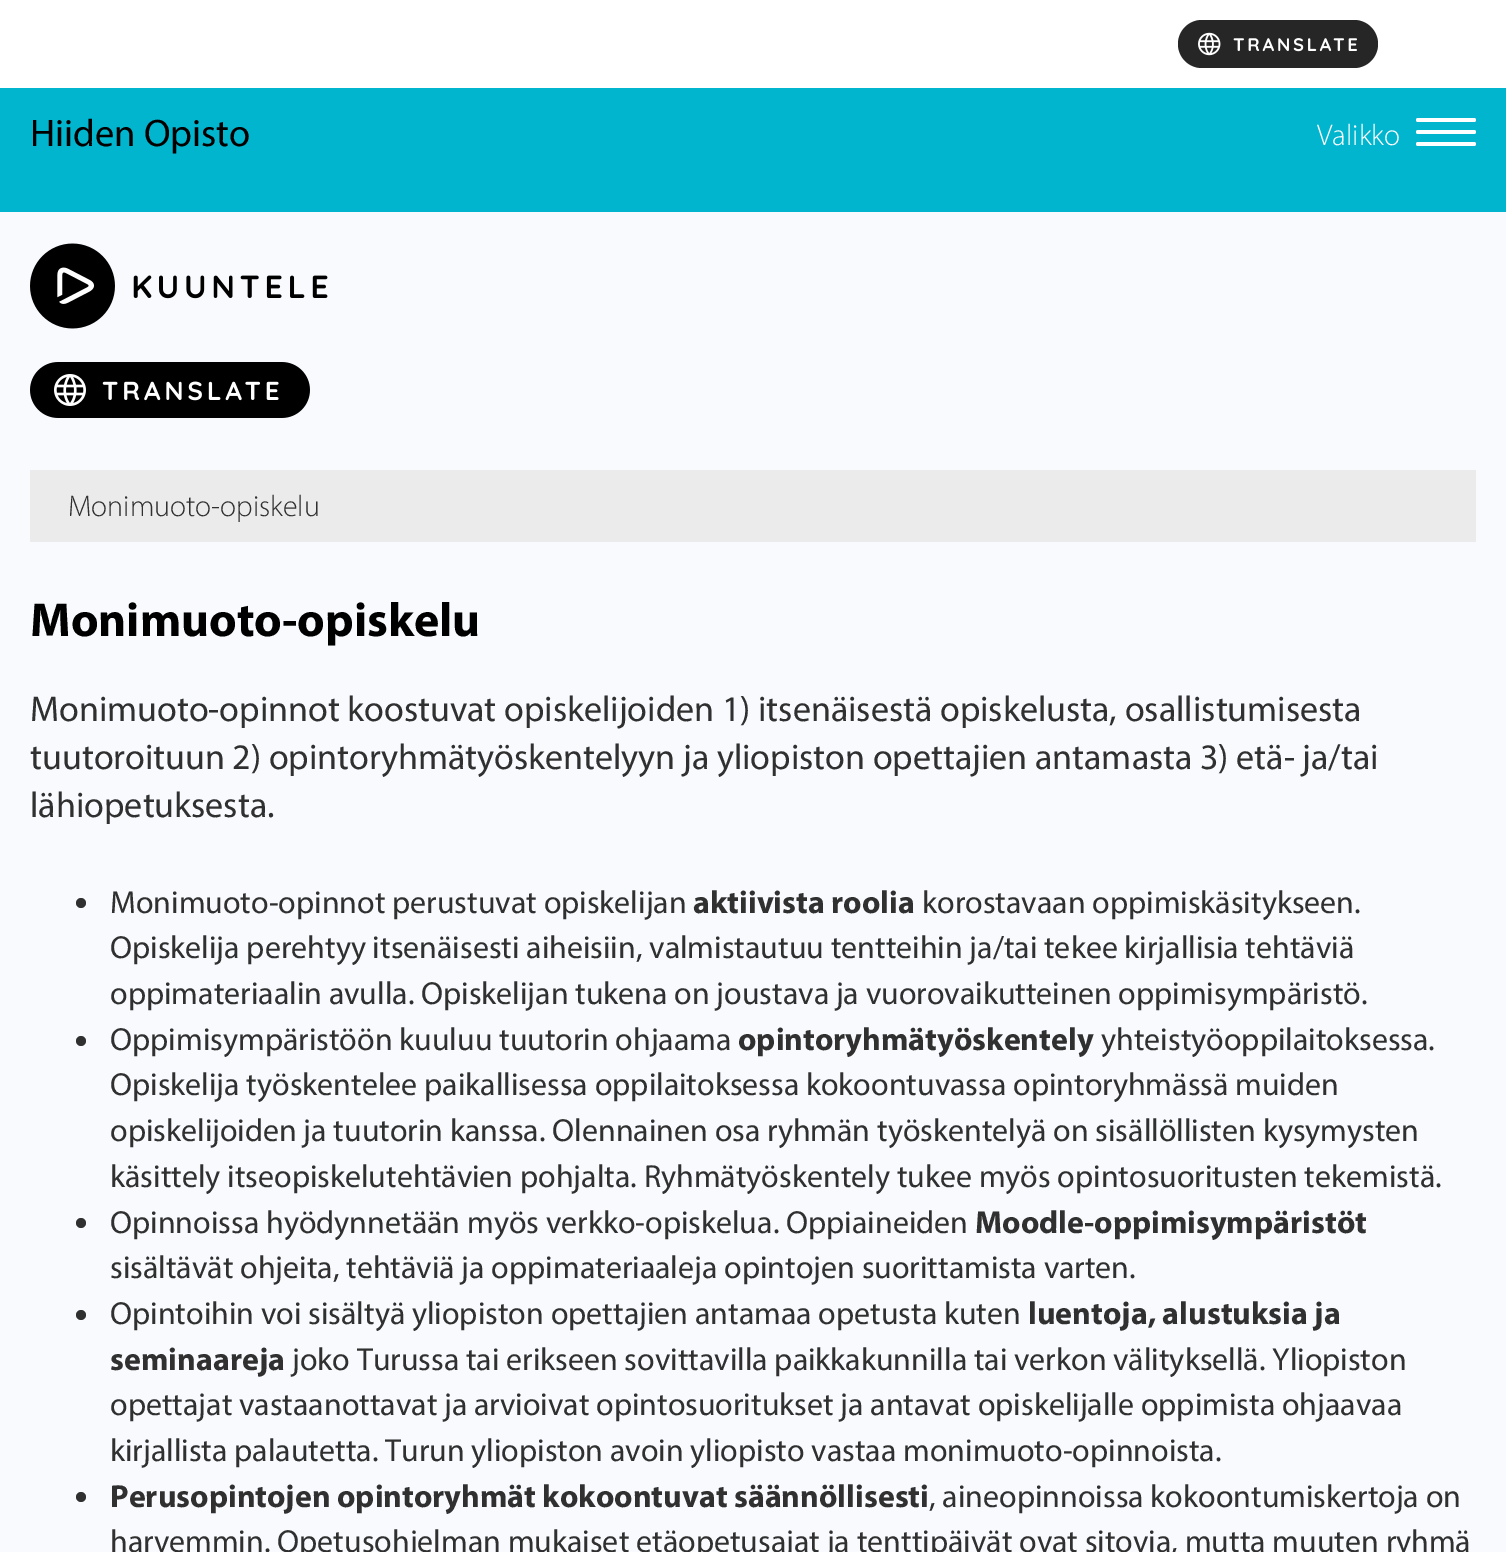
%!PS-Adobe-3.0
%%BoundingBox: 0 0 1506 1552
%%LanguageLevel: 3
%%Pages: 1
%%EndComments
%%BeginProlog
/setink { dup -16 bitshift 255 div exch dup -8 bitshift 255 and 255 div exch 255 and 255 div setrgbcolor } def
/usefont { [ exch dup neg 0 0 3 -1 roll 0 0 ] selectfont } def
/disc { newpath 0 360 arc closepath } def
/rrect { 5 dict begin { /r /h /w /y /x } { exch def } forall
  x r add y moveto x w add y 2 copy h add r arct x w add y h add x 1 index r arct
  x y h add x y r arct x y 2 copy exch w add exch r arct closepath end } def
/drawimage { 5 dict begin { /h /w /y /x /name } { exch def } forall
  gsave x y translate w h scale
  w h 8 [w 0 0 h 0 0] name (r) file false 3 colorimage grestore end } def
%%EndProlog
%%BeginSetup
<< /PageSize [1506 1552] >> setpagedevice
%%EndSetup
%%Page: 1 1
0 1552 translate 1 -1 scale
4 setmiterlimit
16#F8FAFE setink
0 0 1506 1552 rectfill
16#01B5CE setink
0 88 1506 124 rectfill
16#FFFFFF setink
0 0 1506 88 rectfill
16#262626 setink
1178 20 200 48 24 rrect fill
(img1.raw) 1198 32 159 24 drawimage
/Myriad-Regular 38.5 usefont
16#000000 setink
30 146 moveto (Hiiden Opisto) show
/Myriad-Light 30 usefont
16#FFFFFF setink
1317 145 moveto (Valikko) show
1416 118 60 4 2 rrect fill
1416 130 60 4 2 rrect fill
1416 142 60 4 2 rrect fill
(img2.raw) 30 243 298 86 drawimage
(img3.raw) 30 362 280 56 drawimage
16#EBEBEB setink
30 470 1446 72 rectfill
16#303030 setink
68 516 moveto (Monimuoto-opiskelu) show
/Myriad-Bold 48 usefont
16#000000 setink
30 636 moveto (Monimuoto-opiskelu) show
/Myriad-Regular 36 usefont
16#303030 setink
[
    [(Monimuoto-opinnot koostuvat opiskelijoiden 1\) itsenäisestä opiskelusta, osallistumisesta) 30 721]
    [(tuutoroituun 2\) opintoryhmätyöskentelyyn ja yliopiston opettajien antamasta 3\) etä- ja/tai) 30 769]
    [(lähiopetuksesta.) 30 817]
] { aload pop moveto show } forall
81 903 5 disc fill
/Myriad-Regular 32 usefont
110 913 moveto (Monimuoto-opinnot perustuvat opiskelijan) show
/Myriad-Bold 32 usefont
693 913 moveto (aktiivista roolia) show
/Myriad-Regular 32 usefont
[
    [(korostavaan oppimiskäsitykseen.) 922 913]
    [(Opiskelija perehtyy itsenäisesti aiheisiin, valmistautuu tentteihin ja/tai tekee kirjallisia tehtäviä) 110 958]
    [(oppimateriaalin avulla. Opiskelijan tukena on joustava ja vuorovaikutteinen oppimisympäristö.) 110 1004]
] { aload pop moveto show } forall
81 1041 5 disc fill
110 1050 moveto (Oppimisympäristöön kuuluu tuutorin ohjaama) show
/Myriad-Bold 32 usefont
738 1050 moveto (opintoryhmätyöskentely) show
/Myriad-Regular 32 usefont
[
    [(yhteistyöoppilaitoksessa.) 1101 1050]
    [(Opiskelija työskentelee paikallisessa oppilaitoksessa kokoontuvassa opintoryhmässä muiden) 110 1095]
    [(opiskelijoiden ja tuutorin kanssa. Olennainen osa ryhmän työskentelyä on sisällöllisten kysymysten) 110 1141]
    [(käsittely itseopiskelutehtävien pohjalta. Ryhmätyöskentely tukee myös opintosuoritusten tekemistä.) 110 1187]
] { aload pop moveto show } forall
81 1223 5 disc fill
110 1233 moveto (Opinnoissa hyödynnetään myös verkko-opiskelua. Oppiaineiden) show
/Myriad-Bold 32 usefont
975 1233 moveto (Moodle-oppimisympäristöt) show
/Myriad-Regular 32 usefont
110 1278 moveto (sisältävät ohjeita, tehtäviä ja oppimateriaaleja opintojen suorittamista varten.) show
81 1315 5 disc fill
110 1324 moveto (Opintoihin voi sisältyä yliopiston opettajien antamaa opetusta kuten) show
/Myriad-Bold 32 usefont
1028 1324 moveto (luentoja, alustuksia ja) show
110 1370 moveto (seminaareja) show
/Myriad-Regular 32 usefont
[
    [(joko Turussa tai erikseen sovittavilla paikkakunnilla tai verkon välityksellä. Yliopiston) 292 1370]
    [(opettajat vastaanottavat ja arvioivat opintosuoritukset ja antavat opiskelijalle oppimista ohjaavaa) 110 1415]
    [(kirjallista palautetta. Turun yliopiston avoin yliopisto vastaa monimuoto-opinnoista.) 110 1461]
] { aload pop moveto show } forall
81 1497 5 disc fill
/Myriad-Bold 32 usefont
110 1507 moveto (Perusopintojen opintoryhmät kokoontuvat säännöllisesti) show
/Myriad-Regular 32 usefont
929 1507 moveto (, aineopinnoissa kokoontumiskertoja on) show
110 1552 moveto (harvemmin. Opetusohjelman mukaiset etäopetusajat ja tenttipäivät ovat sitovia, mutta muuten ryhmä) show
showpage
%%EOF
